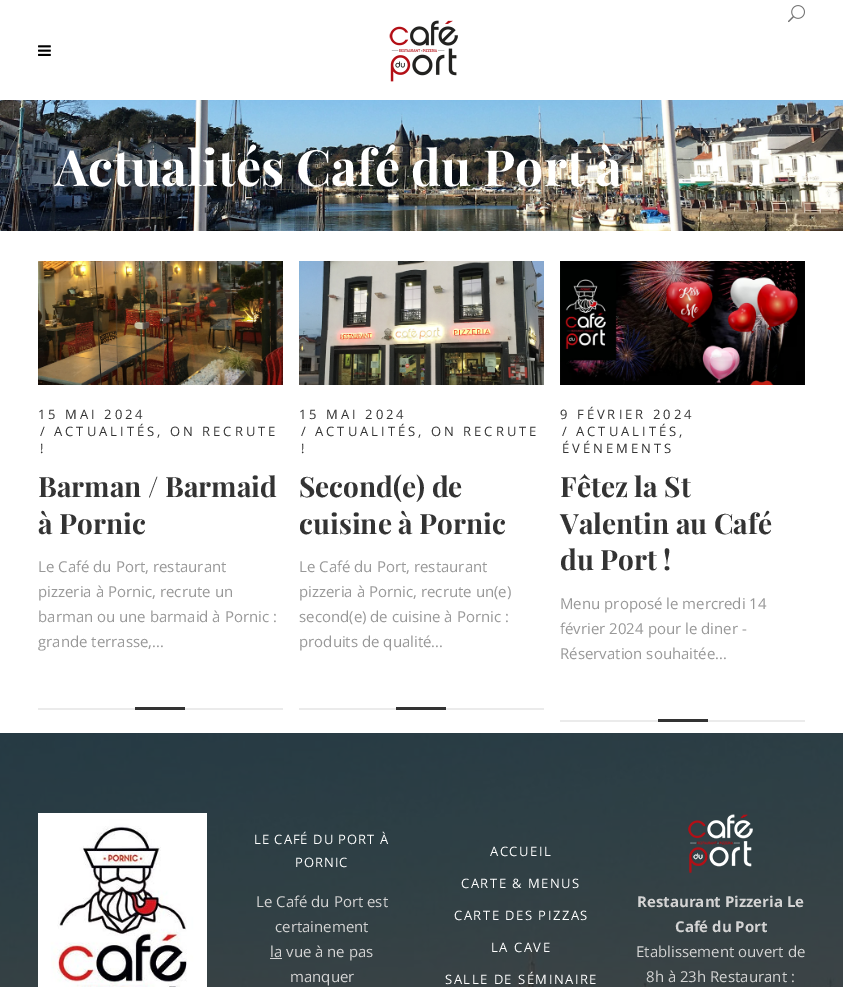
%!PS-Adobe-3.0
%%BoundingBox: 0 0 843 987
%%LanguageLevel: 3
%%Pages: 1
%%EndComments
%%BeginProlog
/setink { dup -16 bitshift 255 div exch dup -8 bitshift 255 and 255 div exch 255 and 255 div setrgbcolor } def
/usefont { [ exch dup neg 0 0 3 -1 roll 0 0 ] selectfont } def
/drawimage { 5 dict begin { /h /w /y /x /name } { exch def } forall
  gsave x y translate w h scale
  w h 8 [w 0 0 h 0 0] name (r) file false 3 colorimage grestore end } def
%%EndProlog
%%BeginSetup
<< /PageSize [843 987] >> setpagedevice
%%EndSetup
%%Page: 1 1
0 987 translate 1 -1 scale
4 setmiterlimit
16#FFFFFF setink
0 0 843 987 rectfill
(img1.raw) 788 5 17 18 drawimage
(img2.raw) 38 45 13 11 drawimage
(img3.raw) 389 20 69 62 drawimage
(img4.raw) 0 100 843 131 drawimage
/PlayfairDisplay-Bold 50 usefont
55 186 moveto (Actualités Café du Port à) show
748 186 moveto (i) show
(img5.raw) 38 261 245 124 drawimage
/OpenSans-Regular 13 usefont
16#333333 setink
38 419 moveto 3 0 (15 MAI 2024) ashow
40 436 moveto 3 0 (/) ashow
54 436 moveto 3 0 (ACTUALITÉS, ON RECRUTE) ashow
40 453 moveto 3 0 (!) ashow
/PlayfairDisplay-Bold 28 usefont
38 497 moveto (Barman / Barmaid) show
38 534 moveto (à Pornic) show
/OpenSans-Regular 15 usefont
16#989898 setink
[
    [(Le Café du Port, restaurant) 38 572]
    [(pizzeria à Pornic, recrute un) 38 597]
    [(barman ou une barmaid à Pornic :) 38 622]
    [(grande terrasse,...) 38 647]
] { aload pop moveto show } forall
16#EBEBEB setink
38 708 245 2 rectfill
16#333333 setink
135 707 50 3 rectfill
(img6.raw) 299 261 245 124 drawimage
/OpenSans-Regular 13 usefont
299 419 moveto 3 0 (15 MAI 2024) ashow
301 436 moveto 3 0 (/) ashow
315 436 moveto 3 0 (ACTUALITÉS, ON RECRUTE) ashow
301 453 moveto 3 0 (!) ashow
/PlayfairDisplay-Bold 28 usefont
299 497 moveto (Second\(e\) de) show
299 534 moveto (cuisine à Pornic) show
/OpenSans-Regular 15 usefont
16#989898 setink
[
    [(Le Café du Port, restaurant) 299 572]
    [(pizzeria à Pornic, recrute un\(e\)) 299 597]
    [(second\(e\) de cuisine à Pornic :) 299 622]
    [(produits de qualité...) 299 647]
] { aload pop moveto show } forall
16#EBEBEB setink
299 708 245 2 rectfill
16#333333 setink
396 707 50 3 rectfill
(img7.raw) 560 261 245 124 drawimage
/OpenSans-Regular 13 usefont
560 419 moveto 3 0 (9 FÉVRIER 2024) ashow
562 436 moveto 3 0 (/) ashow
576 436 moveto 3 0 (ACTUALITÉS,) ashow
562 453 moveto 3 0 (ÉVÉNEMENTS) ashow
/PlayfairDisplay-Bold 28 usefont
[
    [(Fêtez la St) 560 497]
    [(Valentin au Café) 560 534]
    [(du Port !) 560 570]
] { aload pop moveto show } forall
/OpenSans-Regular 15 usefont
16#989898 setink
[
    [(Menu proposé le mercredi 14) 560 609]
    [(février 2024 pour le diner -) 560 634]
    [(Réservation souhaitée...) 560 659]
] { aload pop moveto show } forall
16#EBEBEB setink
560 720 245 2 rectfill
16#333333 setink
658 719 50 3 rectfill
(img8.raw) 0 733 843 254 drawimage
(img9.raw) 38 813 169 174 drawimage
/OpenSans-Regular 13 usefont
16#FFFFFF setink
254 844 moveto 1 0 (LE CAFÉ DU PORT À) ashow
295 867 moveto 1 0 (PORNIC) ashow
/OpenSans-Regular 15 usefont
16#D4D4D4 setink
256 907 moveto (Le Café du Port est) show
275 932 moveto (certainement) show
270 958 12 1 rectfill
270 957 moveto (la vue à ne pas) show
290 982 moveto (manquer) show
/OpenSans-Regular 13 usefont
16#FFFFFF setink
490 856 moveto 1.5 0 (ACCUEIL) ashow
461 888 moveto 1.5 0 (CARTE & MENUS) ashow
454 920 moveto 1.5 0 (CARTE DES PIZZAS) ashow
491 952 moveto 1.5 0 (LA CAVE) ashow
445 984 moveto 1.5 0 (SALLE DE SÉMINAIRE) ashow
(img10.raw) 688 814 65 59 drawimage
/OpenSans-Bold 15 usefont
16#D4D4D4 setink
637 907 moveto (Restaurant Pizzeria Le) show
675 932 moveto (Café du Port) show
/OpenSans-Regular 15 usefont
636 957 moveto (Etablissement ouvert de) show
646 982 moveto (8h à 23h Restaurant :) show
showpage
%%EOF
